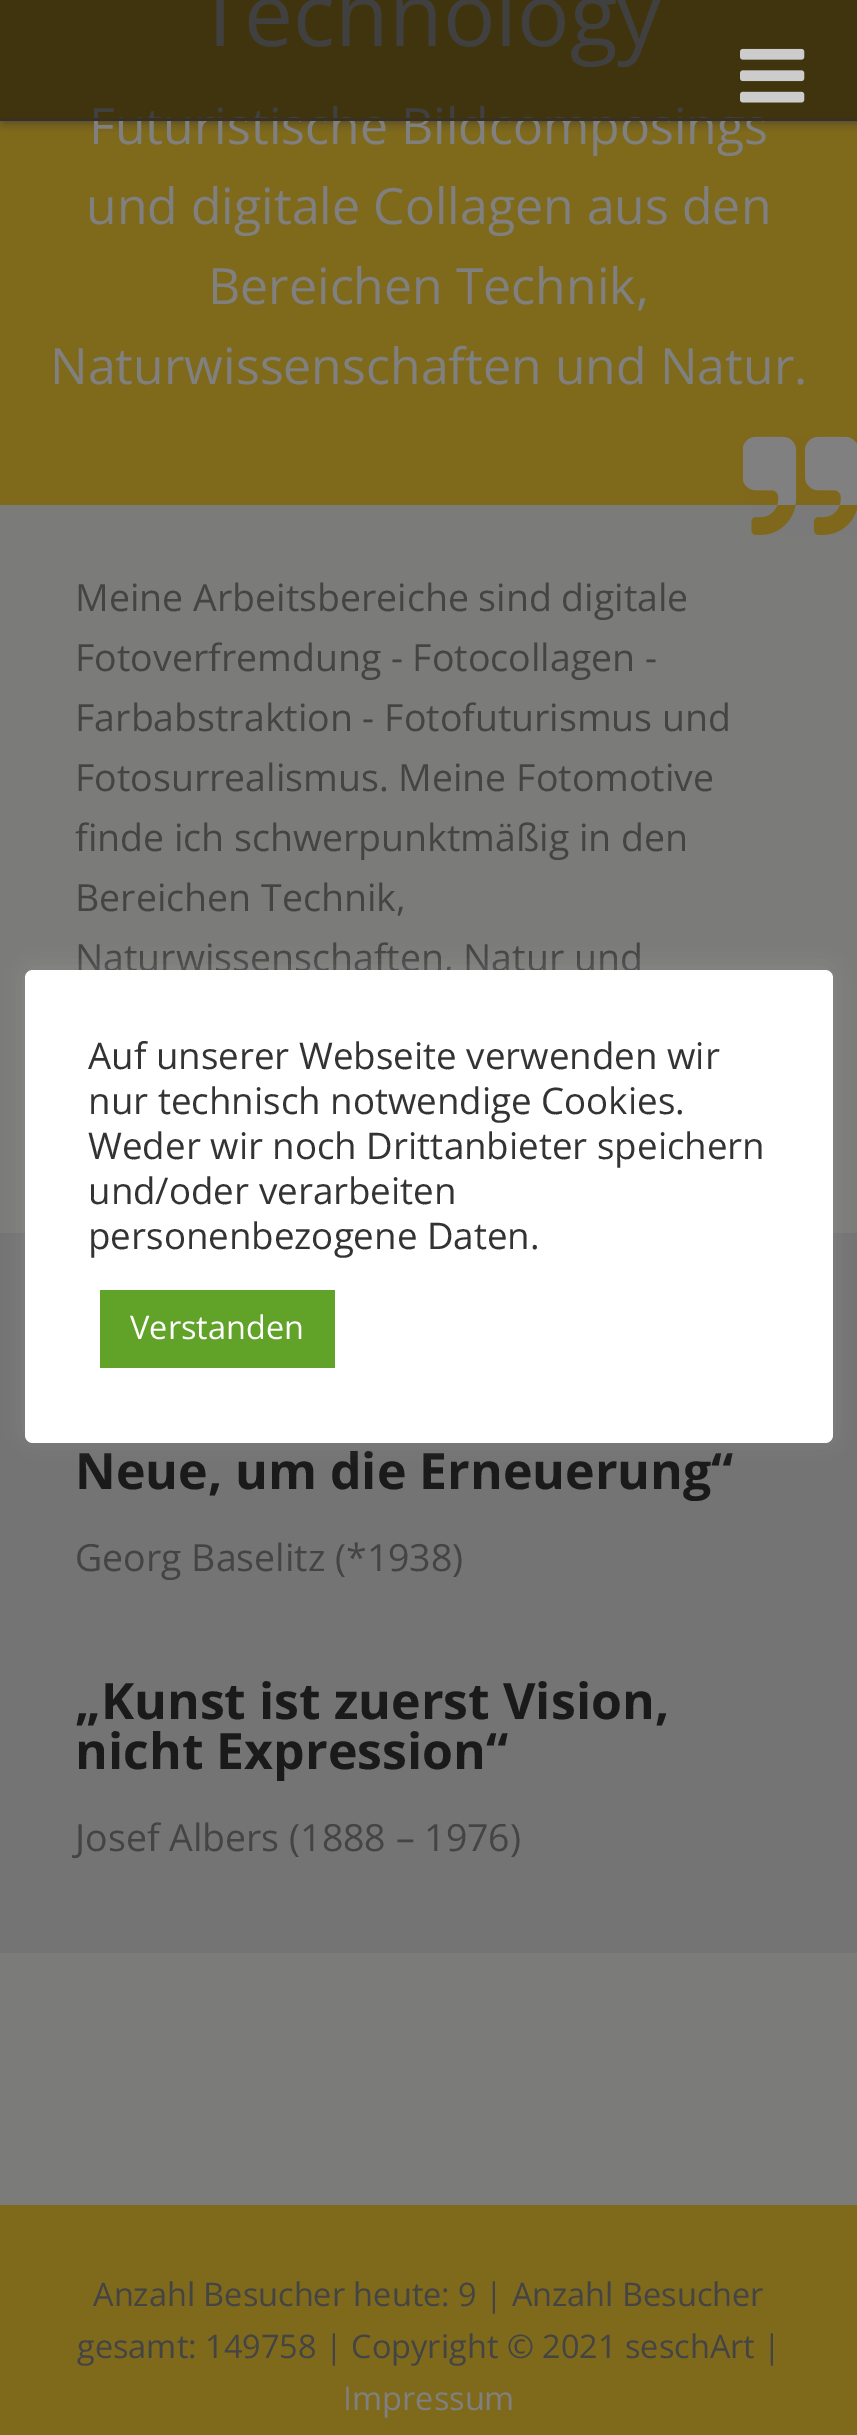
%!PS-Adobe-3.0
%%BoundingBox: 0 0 857 2435
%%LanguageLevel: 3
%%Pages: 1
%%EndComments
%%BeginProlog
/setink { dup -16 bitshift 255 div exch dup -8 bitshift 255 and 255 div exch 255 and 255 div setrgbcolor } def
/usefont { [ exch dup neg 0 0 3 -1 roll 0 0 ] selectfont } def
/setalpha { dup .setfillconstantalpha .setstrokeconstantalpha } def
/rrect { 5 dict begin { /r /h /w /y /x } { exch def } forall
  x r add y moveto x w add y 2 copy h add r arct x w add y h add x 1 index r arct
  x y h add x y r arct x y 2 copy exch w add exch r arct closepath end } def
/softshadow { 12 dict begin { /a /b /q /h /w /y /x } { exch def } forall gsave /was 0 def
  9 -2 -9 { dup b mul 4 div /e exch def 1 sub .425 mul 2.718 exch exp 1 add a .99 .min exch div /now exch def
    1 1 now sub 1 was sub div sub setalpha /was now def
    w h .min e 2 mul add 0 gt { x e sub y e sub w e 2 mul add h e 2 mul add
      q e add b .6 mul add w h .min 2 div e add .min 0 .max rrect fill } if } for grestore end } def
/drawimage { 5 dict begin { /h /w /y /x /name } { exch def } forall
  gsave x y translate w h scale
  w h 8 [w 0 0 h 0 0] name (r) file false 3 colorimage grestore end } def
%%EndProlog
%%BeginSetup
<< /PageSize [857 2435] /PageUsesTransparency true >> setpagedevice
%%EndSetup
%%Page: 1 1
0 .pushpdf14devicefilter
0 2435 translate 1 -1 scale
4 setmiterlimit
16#7B7B7A setink
0 0 857 2435 rectfill
16#7F691B setink
0 0 857 505 rectfill
gsave
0 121 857 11 rectclip
16#333333 setink
3 0 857 120 0 6 1 softshadow
grestore
/OpenSans-Regular 87.5 usefont
16#808080 setink
196 46 moveto (Technology) show
/OpenSans-Regular 50 usefont
89 144 moveto (Futuristische Bildcomposings) show
0.5 setalpha
16#000000 setink
0 0 857 118 rectfill
1 setalpha
16#382F25 setink
0 118 857 3 rectfill
(img1.raw) 740 48 65 55 drawimage
16#808080 setink
[
    [(und digitale Collagen aus den) 86 224]
    [(Bereichen Technik,) 208 304]
    [(Naturwissenschaften und Natur.) 50 384]
] { aload pop moveto show } forall
(img2.raw) 743 436 114 69 drawimage
(img3.raw) 751 505 106 30 drawimage
/OpenSans-Regular 37.5 usefont
16#444444 setink
[
    [(Meine Arbeitsbereiche sind digitale) 75 611]
    [(Fotoverfremdung - Fotocollagen -) 75 671]
    [(Farbabstraktion - Fotofuturismus und) 75 731]
    [(Fotosurrealismus. Meine Fotomotive) 75 791]
    [(finde ich schwerpunktmäßig in den) 75 851]
    [(Bereichen Technik,) 75 911]
    [(Naturwissenschaften, Natur und) 75 971]
] { aload pop moveto show } forall
16#747474 setink
0 1233 857 720 rectfill
/OpenSans-Bold 50 usefont
16#1A1A1A setink
75 1489 moveto (Neue, um die Erneuerung“) show
/OpenSans-Regular 37.5 usefont
16#444444 setink
75 1571 moveto (Georg Baselitz \(*1938\)) show
/OpenSans-Bold 50 usefont
16#1A1A1A setink
75 1719 moveto („Kunst ist zuerst Vision,) show
75 1769 moveto (nicht Expression“) show
/OpenSans-Regular 37.5 usefont
16#444444 setink
75 1851 moveto (Josef Albers \(1888 – 1976\)) show
16#7F691B setink
0 2205 857 230 rectfill
/OpenSans-Regular 32.5 usefont
16#444444 setink
93 2306 moveto (Anzahl Besucher heute: 9 | Anzahl Besucher) show
77 2358 moveto (gesamt: 149758 | Copyright © 2021 seschArt |) show
16#808080 setink
343 2410 moveto (Impressum) show
16#ACABAB setink
25 968 808 472 8 12.5 0.3 softshadow
16#FFFFFF setink
25 970 808 473 8 rrect fill
/OpenSans-Regular 36.7 usefont
16#333333 setink
[
    [(Auf unserer Webseite verwenden wir) 88 1069]
    [(nur technisch notwendige Cookies.) 88 1114]
    [(Weder wir noch Drittanbieter speichern) 88 1159]
    [(und/oder verarbeiten) 88 1204]
    [(personenbezogene Daten.) 88 1249]
] { aload pop moveto show } forall
16#61A229 setink
100 1290 235 78 rectfill
/OpenSans-Regular 32.5 usefont
16#FFFFFF setink
130 1339 moveto (Verstanden) show
.poppdf14devicefilter showpage
%%EOF
